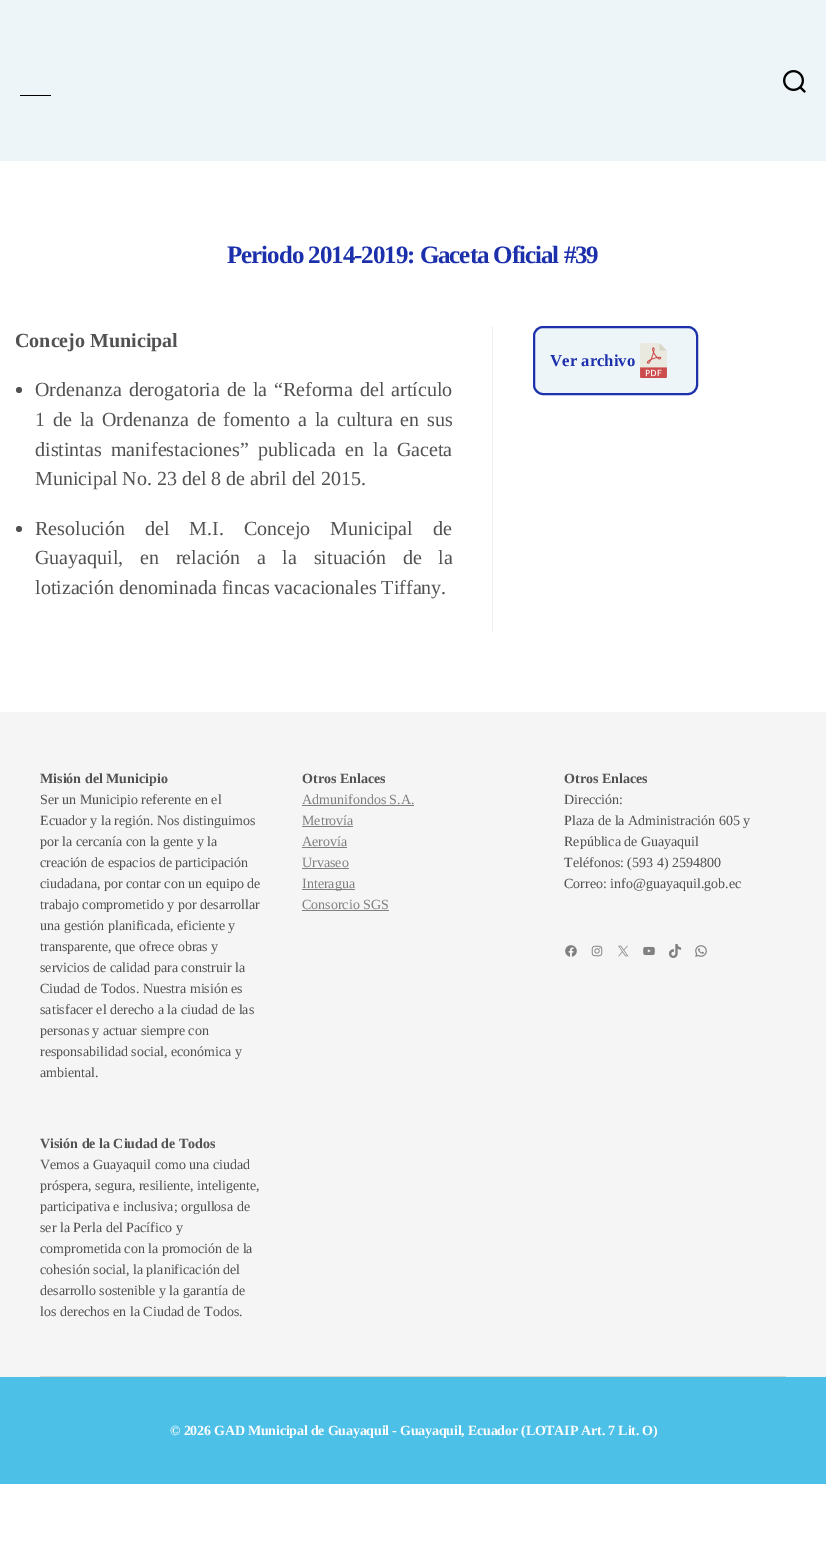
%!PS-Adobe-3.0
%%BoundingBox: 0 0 826 1556
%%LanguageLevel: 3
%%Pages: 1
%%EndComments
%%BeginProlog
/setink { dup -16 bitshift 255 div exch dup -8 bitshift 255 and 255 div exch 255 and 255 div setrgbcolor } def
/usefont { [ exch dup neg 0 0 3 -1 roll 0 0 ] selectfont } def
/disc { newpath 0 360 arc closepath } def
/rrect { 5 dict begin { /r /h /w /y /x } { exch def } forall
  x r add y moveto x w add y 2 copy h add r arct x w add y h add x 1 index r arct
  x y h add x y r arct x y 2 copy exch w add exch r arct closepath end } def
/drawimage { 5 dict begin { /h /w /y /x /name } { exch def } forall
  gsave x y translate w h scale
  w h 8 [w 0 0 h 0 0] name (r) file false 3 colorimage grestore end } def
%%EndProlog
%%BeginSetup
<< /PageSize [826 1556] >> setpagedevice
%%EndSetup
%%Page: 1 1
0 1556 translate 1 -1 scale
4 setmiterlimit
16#FFFFFF setink
0 0 826 1556 rectfill
16#EEF5F9 setink
0 0 826 161 rectfill
(img1.raw) 783 70 23 23 drawimage
16#000000 setink
20 95 31 1 rectfill
/LiberationSerif-Bold 25 usefont
16#1D30AB setink
227 263 moveto -1.05 0 (Periodo 2014-2019: Gaceta Oficial #39) ashow
/LiberationSerif-Bold 20 usefont
16#525254 setink
15 347 moveto (Concejo Municipal) show
19 390 3 disc fill
/LiberationSerif-Regular 20 usefont
35 396 moveto 2 0 32 (Ordenanza derogatoria de la “Reforma del artículo) widthshow
35 426 moveto 2.9 0 32 (1 de la Ordenanza de fomento a la cultura en sus) widthshow
35 456 moveto 4.25 0 32 (distintas manifestaciones” publicada en la Gaceta) widthshow
35 485 moveto (Municipal No. 23 del 8 de abril del 2015.) show
19 529 3 disc fill
35 535 moveto 15 0 32 (Resolución del M.I. Concejo Municipal de) widthshow
35 564 moveto 11.75 0 32 (Guayaquil, en relación a la situación de la) widthshow
35 594 moveto (lotización denominada fincas vacacionales Tiffany.) show
16#EEEEEE setink
492 326 1 306 rectfill
16#EEF5F9 setink
534 327 163 67 9 rrect gsave fill grestore
16#1D31AB setink
2 setlinewidth
stroke
/LiberationSerif-Bold 16.75 usefont
16#1D30AB setink
550 366 moveto (Ver archivo) show
(img2.raw) 640 343 27 35 drawimage
16#F5F5F5 setink
0 712 826 665 rectfill
16#DCD7CA setink
40 1376 746 1 rectfill
/LiberationSerif-Bold 14 usefont
16#525254 setink
40 783 moveto (Misión del Municipio) show
/LiberationSerif-Regular 14 usefont
[
    [(Ser un Municipio referente en el) 40 804]
    [(Ecuador y la región. Nos distinguimos) 40 825]
    [(por la cercanía con la gente y la) 40 846]
    [(creación de espacios de participación) 40 867]
    [(ciudadana, por contar con un equipo de) 40 888]
    [(trabajo comprometido y por desarrollar) 40 909]
    [(una gestión planificada, eficiente y) 40 930]
    [(transparente, que ofrece obras y) 40 951]
    [(servicios de calidad para construir la) 40 972]
    [(Ciudad de Todos. Nuestra misión es) 40 993]
    [(satisfacer el derecho a la ciudad de las) 40 1014]
    [(personas y actuar siempre con) 40 1035]
    [(responsabilidad social, económica y) 40 1056]
    [(ambiental.) 40 1077]
] { aload pop moveto show } forall
/LiberationSerif-Bold 14 usefont
40 1148 moveto (Visión de la Ciudad de Todos) show
/LiberationSerif-Regular 14 usefont
[
    [(Vemos a Guayaquil como una ciudad) 40 1169]
    [(próspera, segura, resiliente, inteligente,) 40 1190]
    [(participativa e inclusiva; orgullosa de) 40 1211]
    [(ser la Perla del Pacífico y) 40 1232]
    [(comprometida con la promoción de la) 40 1253]
    [(cohesión social, la planificación del) 40 1274]
    [(desarrollo sostenible y la garantía de) 40 1295]
    [(los derechos en la Ciudad de Todos.) 40 1316]
] { aload pop moveto show } forall
/LiberationSerif-Bold 14 usefont
302 783 moveto (Otros Enlaces) show
/LiberationSerif-Regular 14 usefont
16#808080 setink
302 804 moveto (Admunifondos S.A.) show
302 805 112 1 rectfill
302 825 moveto (Metrovía) show
302 826 51 1 rectfill
302 846 moveto (Aerovía) show
302 847 45 1 rectfill
302 867 moveto (Urvaseo) show
302 868 47 1 rectfill
302 889 53 1 rectfill
302 888 moveto (Interagua) show
302 909 moveto (Consorcio SGS) show
302 910 87 1 rectfill
/LiberationSerif-Bold 14 usefont
16#525254 setink
564 783 moveto (Otros Enlaces) show
/LiberationSerif-Regular 14 usefont
[
    [(Dirección:) 564 804]
    [(Plaza de la Administración 605 y) 564 825]
    [(República de Guayaquil) 564 846]
    [(Teléfonos: \(593 4\) 2594800) 564 867]
    [(Correo: info@guayaquil.gob.ec) 564 888]
] { aload pop moveto show } forall
(img3.raw) 565 945 12 12 drawimage
(img4.raw) 591 945 12 12 drawimage
(img5.raw) 618 945 11 12 drawimage
(img6.raw) 643 946 12 10 drawimage
(img7.raw) 668 944 14 14 drawimage
(img8.raw) 695 945 12 12 drawimage
16#4DC0E8 setink
0 1377 826 107 rectfill
/LiberationSerif-Bold 14 usefont
16#FFFFFF setink
170 1435 moveto -0.2 0 (© 2026 GAD Municipal de Guayaquil - Guayaquil, Ecuador \(LOTAIP Art. 7 Lit. O\)) ashow
showpage
%%EOF
